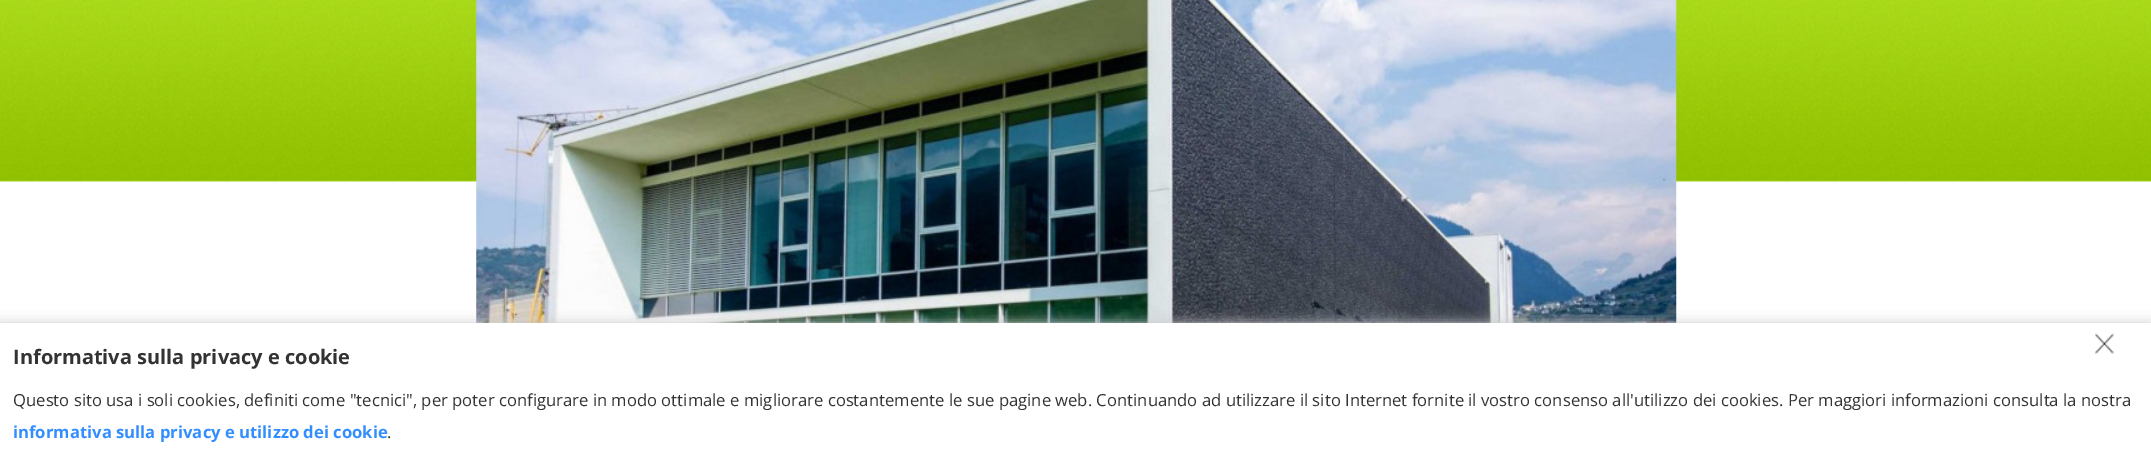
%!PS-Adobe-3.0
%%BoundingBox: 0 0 2151 460
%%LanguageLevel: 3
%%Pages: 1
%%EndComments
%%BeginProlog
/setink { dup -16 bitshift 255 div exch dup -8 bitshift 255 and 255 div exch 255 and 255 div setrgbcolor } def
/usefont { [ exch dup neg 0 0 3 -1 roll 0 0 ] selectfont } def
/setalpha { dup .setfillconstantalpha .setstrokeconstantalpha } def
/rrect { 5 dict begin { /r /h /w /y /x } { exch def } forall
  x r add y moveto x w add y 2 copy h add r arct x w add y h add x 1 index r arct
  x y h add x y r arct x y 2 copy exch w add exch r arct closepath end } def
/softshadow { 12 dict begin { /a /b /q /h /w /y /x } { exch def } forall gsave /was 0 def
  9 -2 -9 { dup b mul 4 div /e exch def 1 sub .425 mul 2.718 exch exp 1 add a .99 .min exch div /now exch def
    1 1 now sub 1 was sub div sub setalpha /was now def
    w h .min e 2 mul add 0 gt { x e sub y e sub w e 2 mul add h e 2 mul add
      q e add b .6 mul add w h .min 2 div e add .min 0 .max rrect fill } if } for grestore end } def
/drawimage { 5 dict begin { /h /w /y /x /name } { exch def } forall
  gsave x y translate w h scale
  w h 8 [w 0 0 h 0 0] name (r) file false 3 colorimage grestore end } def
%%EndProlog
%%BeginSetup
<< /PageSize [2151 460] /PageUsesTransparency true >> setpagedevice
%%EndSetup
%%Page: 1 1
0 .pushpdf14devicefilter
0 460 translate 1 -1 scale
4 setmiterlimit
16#FFFFFF setink
0 0 2151 460 rectfill
(img1.raw) 0 0 2151 182 drawimage
(img2.raw) 476 0 1201 323 drawimage
16#CCCCCC setink
0 323 2151 137 0 6 1 softshadow
16#FFFFFF setink
0 323 2151 137 rectfill
(img3.raw) 2095 333 19 21 drawimage
/OpenSans-Bold 20 usefont
16#333333 setink
13 364 moveto (Informativa sulla privacy e cookie) show
/OpenSans-Regular 16.67 usefont
13 406 moveto (Questo sito usa i soli cookies, definiti come "tecnici", per poter configurare in modo ottimale e migliorare costantemente le sue pagine web. Continuando ad utilizzare il sito Internet fornite il vostro consenso all'utilizzo dei cookies. Per maggiori informazioni consulta la nostra) show
/OpenSans-Bold 16.67 usefont
16#328EFE setink
13 438 moveto (informativa sulla privacy e utilizzo dei cookie) show
/OpenSans-Regular 16.67 usefont
16#333333 setink
387 438 moveto (.) show
.poppdf14devicefilter showpage
%%EOF
